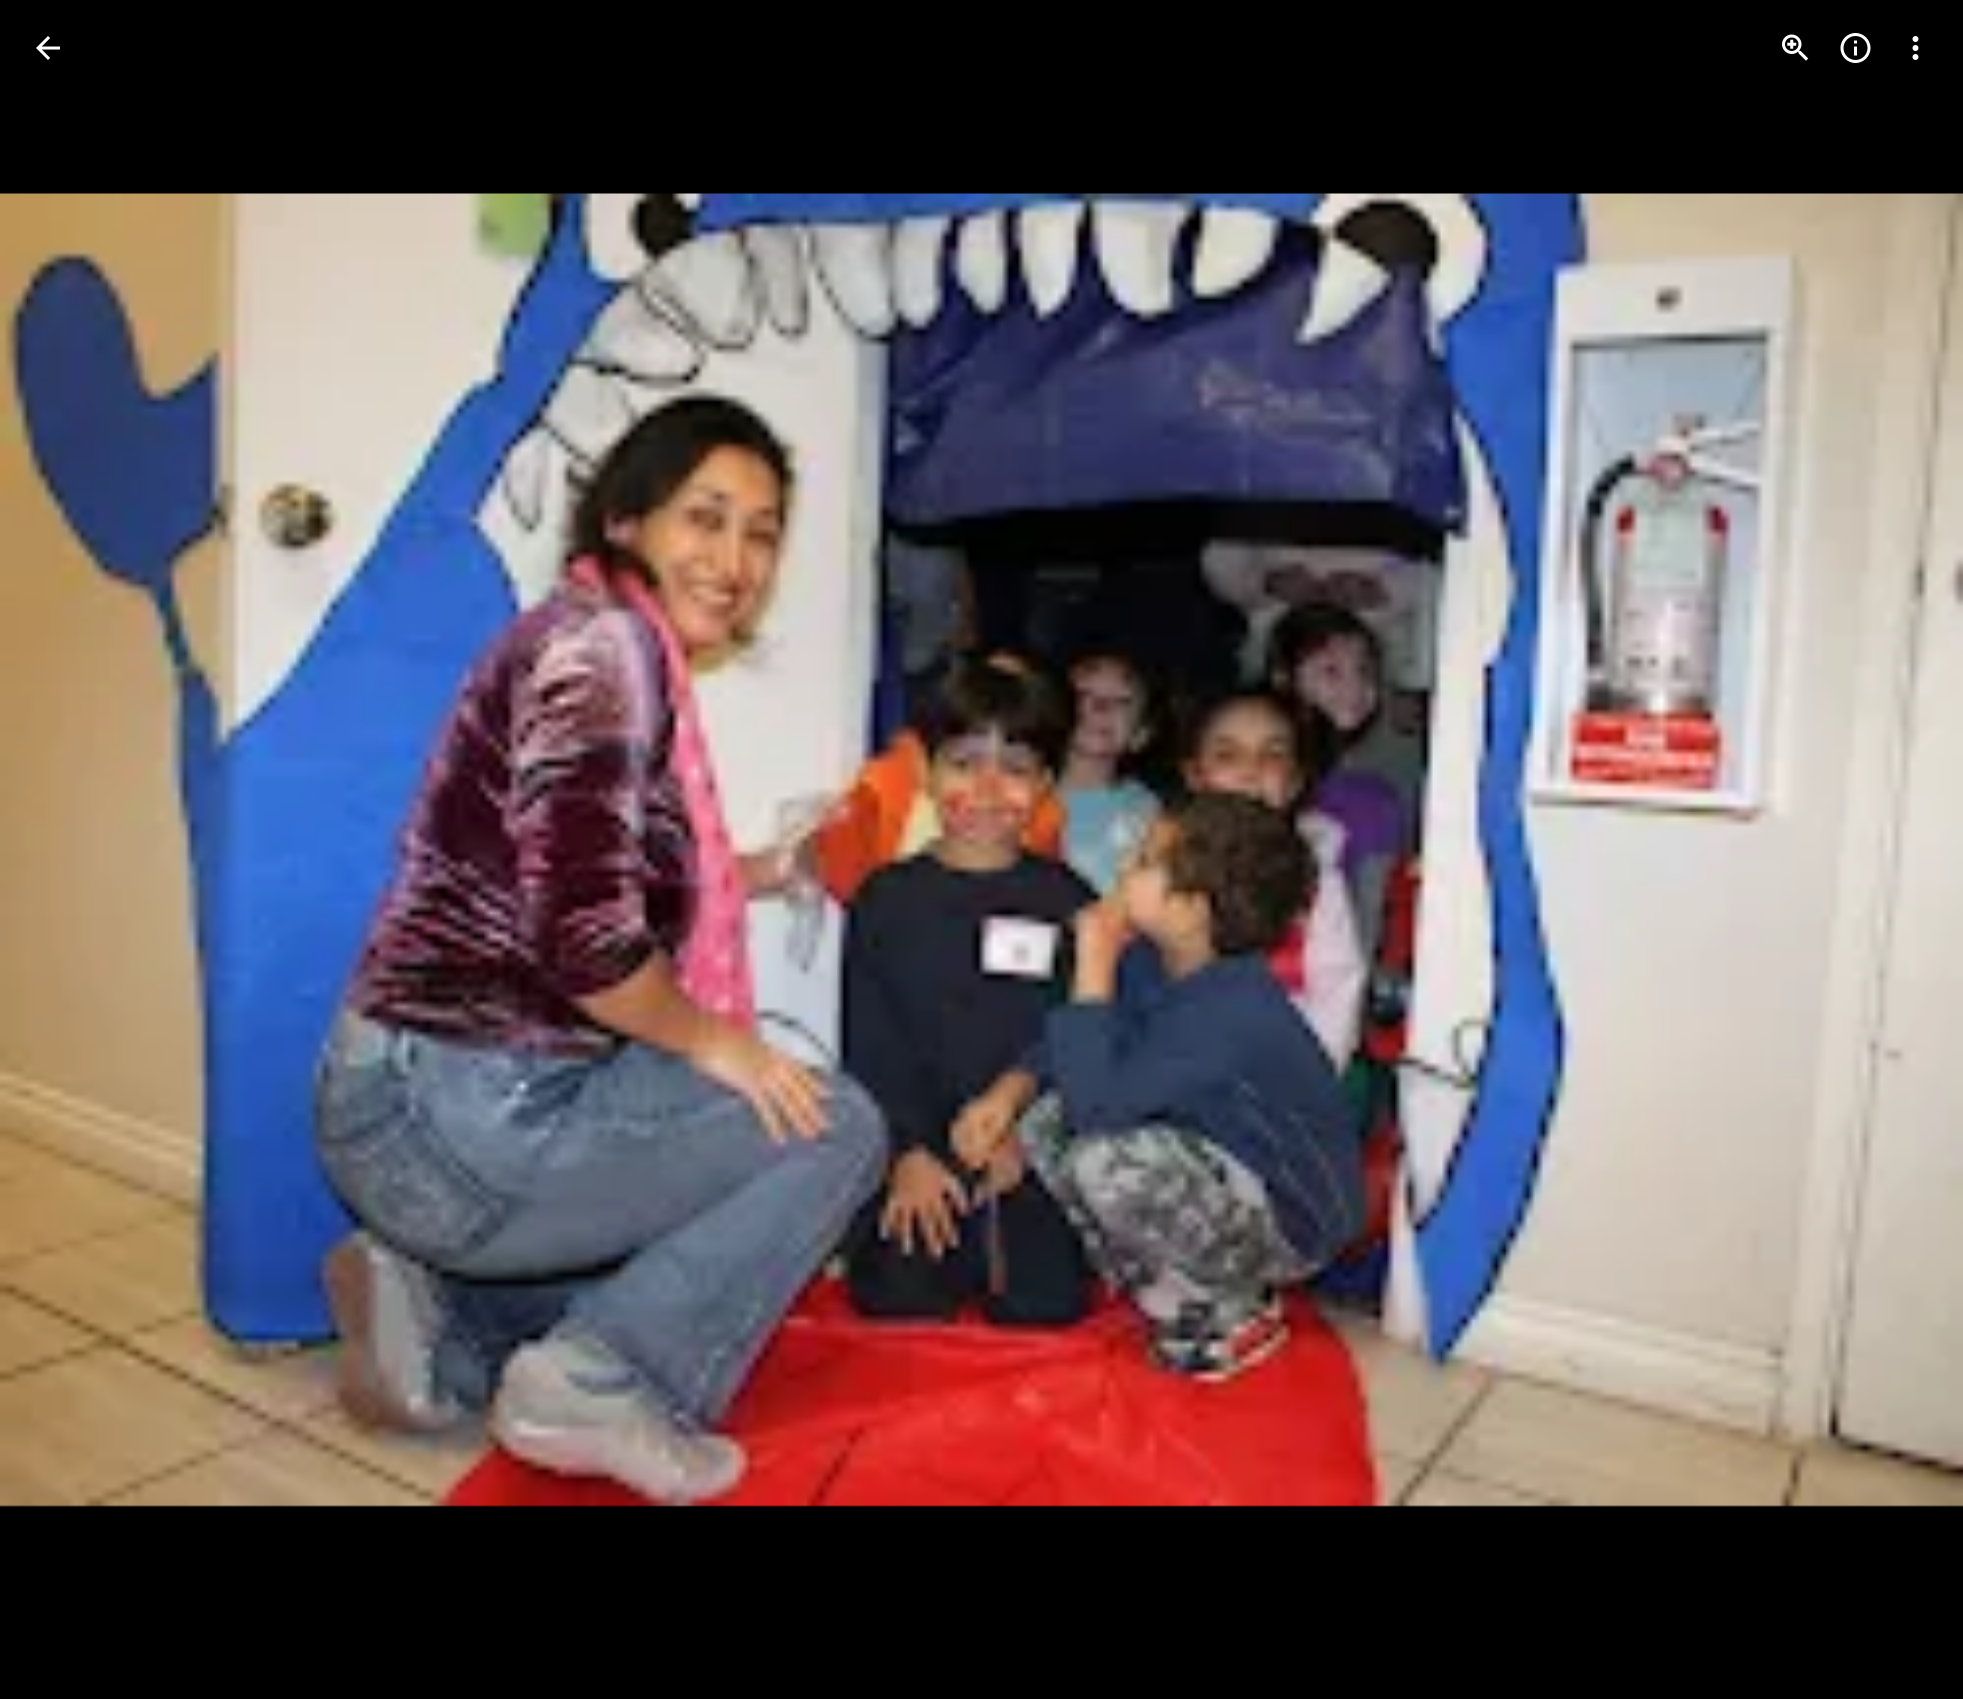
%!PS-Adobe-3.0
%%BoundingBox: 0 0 1963 1699
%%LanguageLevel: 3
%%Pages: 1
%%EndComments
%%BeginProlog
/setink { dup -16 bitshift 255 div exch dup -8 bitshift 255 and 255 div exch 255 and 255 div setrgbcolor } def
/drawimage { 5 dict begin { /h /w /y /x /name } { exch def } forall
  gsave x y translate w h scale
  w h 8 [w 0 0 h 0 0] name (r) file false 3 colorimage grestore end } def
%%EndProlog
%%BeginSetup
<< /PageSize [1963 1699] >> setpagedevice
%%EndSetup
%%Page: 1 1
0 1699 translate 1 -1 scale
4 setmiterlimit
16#000000 setink
0 0 1963 1699 rectfill
(img1.raw) 36 36 24 24 drawimage
(img2.raw) 1782 34 27 27 drawimage
(img3.raw) 1840 33 31 30 drawimage
(img4.raw) 1912 36 7 24 drawimage
(img5.raw) 0 193 1963 1314 drawimage
showpage
%%EOF
